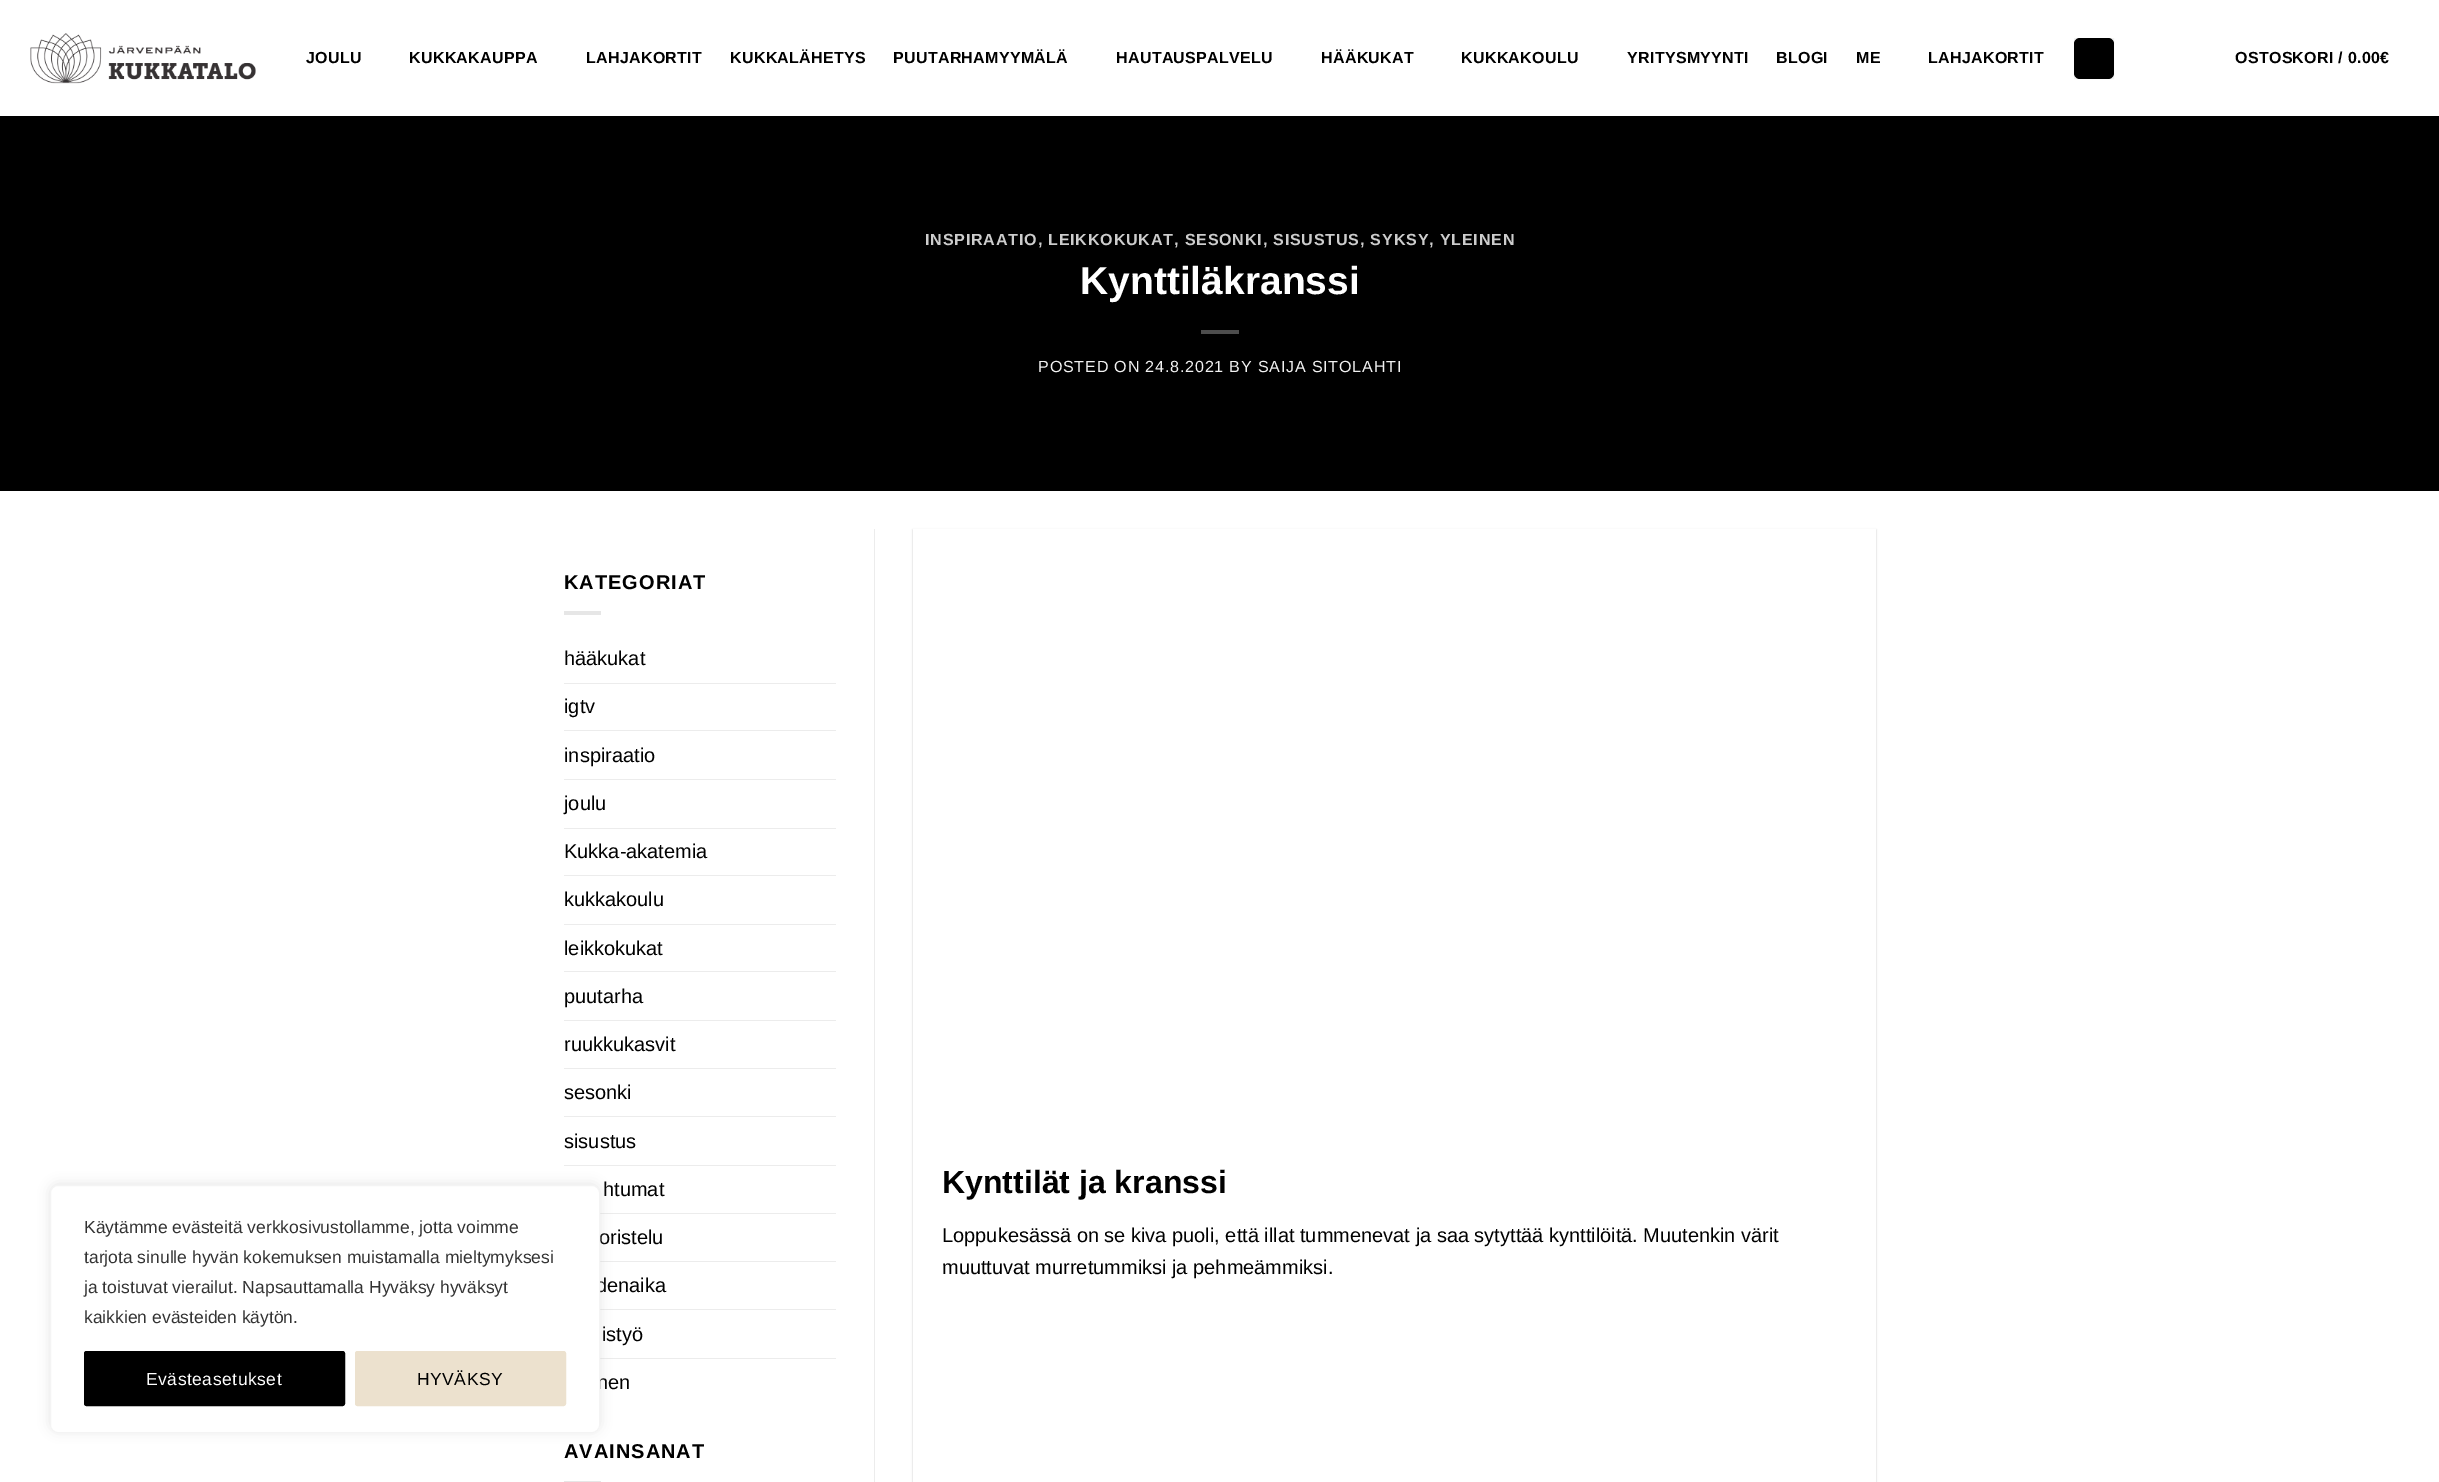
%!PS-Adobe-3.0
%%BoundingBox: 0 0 2439 1482
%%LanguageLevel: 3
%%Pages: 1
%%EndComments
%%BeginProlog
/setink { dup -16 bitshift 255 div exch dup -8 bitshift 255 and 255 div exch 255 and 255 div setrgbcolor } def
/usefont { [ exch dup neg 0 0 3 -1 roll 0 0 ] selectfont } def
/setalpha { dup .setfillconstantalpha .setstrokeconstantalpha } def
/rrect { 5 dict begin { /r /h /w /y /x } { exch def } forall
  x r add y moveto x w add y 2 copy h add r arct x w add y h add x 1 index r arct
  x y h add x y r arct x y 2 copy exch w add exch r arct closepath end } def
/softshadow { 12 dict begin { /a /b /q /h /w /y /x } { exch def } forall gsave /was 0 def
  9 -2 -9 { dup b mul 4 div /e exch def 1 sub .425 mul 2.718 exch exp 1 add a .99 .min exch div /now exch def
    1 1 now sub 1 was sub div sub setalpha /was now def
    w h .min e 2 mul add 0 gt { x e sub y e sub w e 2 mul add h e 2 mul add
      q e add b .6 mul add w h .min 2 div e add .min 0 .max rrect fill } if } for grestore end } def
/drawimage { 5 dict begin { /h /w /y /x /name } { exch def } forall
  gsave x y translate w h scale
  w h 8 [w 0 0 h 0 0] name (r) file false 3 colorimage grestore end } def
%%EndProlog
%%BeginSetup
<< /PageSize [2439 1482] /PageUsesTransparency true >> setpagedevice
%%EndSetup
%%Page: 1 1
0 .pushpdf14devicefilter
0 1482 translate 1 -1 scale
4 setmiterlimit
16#FFFFFF setink
0 0 2439 1482 rectfill
(img1.raw) 30 33 226 51 drawimage
/LiberationSans-Bold 16 usefont
16#000000 setink
306 63 moveto 0.3 0 (JOULU) ashow
409 63 moveto 0.3 0 (KUKKAKAUPPA) ashow
586 63 moveto 0.3 0 (LAHJAKORTIT) ashow
730 63 moveto 0.3 0 (KUKKALÄHETYS) ashow
893 63 moveto 0.3 0 (PUUTARHAMYYMÄLÄ) ashow
1116 63 moveto 0.3 0 (HAUTAUSPALVELU) ashow
1321 63 moveto 0.3 0 (HÄÄKUKAT) ashow
1461 63 moveto 0.3 0 (KUKKAKOULU) ashow
1627 63 moveto 0.3 0 (YRITYSMYYNTI) ashow
1776 63 moveto 0.3 0 (BLOGI) ashow
1856 63 moveto 0.3 0 (ME) ashow
1928 63 moveto 0.3 0 (LAHJAKORTIT) ashow
2074 38 40 41 6 rrect fill
0.05 setalpha
2074.5 38.5 39 40 rectstroke
1 setalpha
2235 63 moveto 0.3 0 (OSTOSKORI / 0.00€) ashow
0 116 2439 375 rectfill
/LiberationSans-Bold 16.1 usefont
16#CCCCCC setink
925 245 moveto 0.8 0 (INSPIRAATIO, LEIKKOKUKAT, SESONKI, SISUSTUS, SYKSY, YLEINEN) ashow
/LiberationSans-Bold 39 usefont
16#FFFFFF setink
1080 294 moveto (Kynttiläkranssi) show
16#4D4D4D setink
1201 330 38 4 rectfill
/LiberationSans-Regular 16.1 usefont
16#F1F1F1 setink
1038 372 moveto 0.8 0 (POSTED ON 24.8.2021 BY SAIJA SITOLAHTI) ashow
/LiberationSans-Bold 20 usefont
16#000000 setink
564 589 moveto 1 0 (KATEGORIAT) ashow
16#E6E6E6 setink
564 611 37 4 rectfill
/LiberationSans-Regular 20 usefont
16#000000 setink
564 665 moveto (hääkukat) show
16#ECECEC setink
564 683 272 1 rectfill
16#000000 setink
564 713 moveto (igtv) show
16#ECECEC setink
564 730 272 1 rectfill
16#000000 setink
564 762 moveto (inspiraatio) show
16#ECECEC setink
564 779 272 1 rectfill
16#000000 setink
564 810 moveto (joulu) show
16#ECECEC setink
564 828 272 1 rectfill
16#000000 setink
564 858 moveto (Kukka-akatemia) show
16#ECECEC setink
564 875 272 1 rectfill
16#000000 setink
564 906 moveto (kukkakoulu) show
16#ECECEC setink
564 924 272 1 rectfill
16#000000 setink
564 955 moveto (leikkokukat) show
16#ECECEC setink
564 971 272 1 rectfill
16#000000 setink
564 1003 moveto (puutarha) show
16#ECECEC setink
564 1020 272 1 rectfill
16#000000 setink
564 1051 moveto (ruukkukasvit) show
16#ECECEC setink
564 1068 272 1 rectfill
16#000000 setink
564 1099 moveto (sesonki) show
16#ECECEC setink
564 1116 272 1 rectfill
16#000000 setink
564 1148 moveto (sisustus) show
16#ECECEC setink
564 1165 272 1 rectfill
16#000000 setink
603 1196 moveto (htumat) show
16#ECECEC setink
600 1213 236 1 rectfill
16#000000 setink
599 1244 moveto (oristelu) show
16#ECECEC setink
600 1261 236 1 rectfill
16#000000 setink
596 1292 moveto (denaika) show
16#ECECEC setink
600 1309 236 1 rectfill
16#000000 setink
602 1341 moveto (istyö) show
16#ECECEC setink
600 1358 236 1 rectfill
16#000000 setink
597 1389 moveto (nen) show
/LiberationSans-Bold 20 usefont
564 1458 moveto 1 0 (AVAINSANAT) ashow
16#E6E6E6 setink
564 1481 37 1 rectfill
16#ECECEC setink
874 529 1 953 rectfill
gsave
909 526 moveto 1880 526 lineto 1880 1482 lineto 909 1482 lineto closepath 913 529 moveto 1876 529 lineto 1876 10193 lineto 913 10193 lineto closepath eoclip newpath
16#000000 setink
913 530 963 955 0 1 0.24 softshadow
grestore
/LiberationSans-Bold 32 usefont
16#000000 setink
942 1193 moveto (Kynttilät ja kranssi) show
/LiberationSans-Regular 20 usefont
942 1242 moveto (Loppukesässä on se kiva puoli, että illat tummenevat ja saa sytyttää kynttilöitä. Muutenkin värit) show
942 1274 moveto (muuttuvat murretummiksi ja pehmeämmiksi.) show
16#ACABAB setink
50 1184 550 247 8 6 0.3 softshadow
16#FFFFFF setink
50.5 1185.5 549 247 7.5 rrect gsave fill grestore
16#F4F4F4 setink
stroke
/LiberationSans-Regular 17.5 usefont
16#333333 setink
[
    [(Käytämme evästeitä verkkosivustollamme, jotta voimme) 84 1233]
    [(tarjota sinulle hyvän kokemuksen muistamalla mieltymyksesi) 84 1263]
    [(ja toistuvat vierailut. Napsauttamalla Hyväksy hyväksyt) 84 1293]
    [(kaikkien evästeiden käytön.) 84 1323]
] { aload pop moveto show } forall
16#000000 setink
85.5 1352.5 258 52 1 rrect gsave fill grestore
3 setlinewidth
stroke
16#FFFFFF setink
146 1385 moveto 0.5 0 (Evästeasetukset) ashow
16#ECE1CE setink
356.5 1352.5 208 52 1 rrect gsave fill grestore
stroke
16#000000 setink
417 1385 moveto 0.5 0 (HYVÄKSY) ashow
.poppdf14devicefilter showpage
%%EOF
